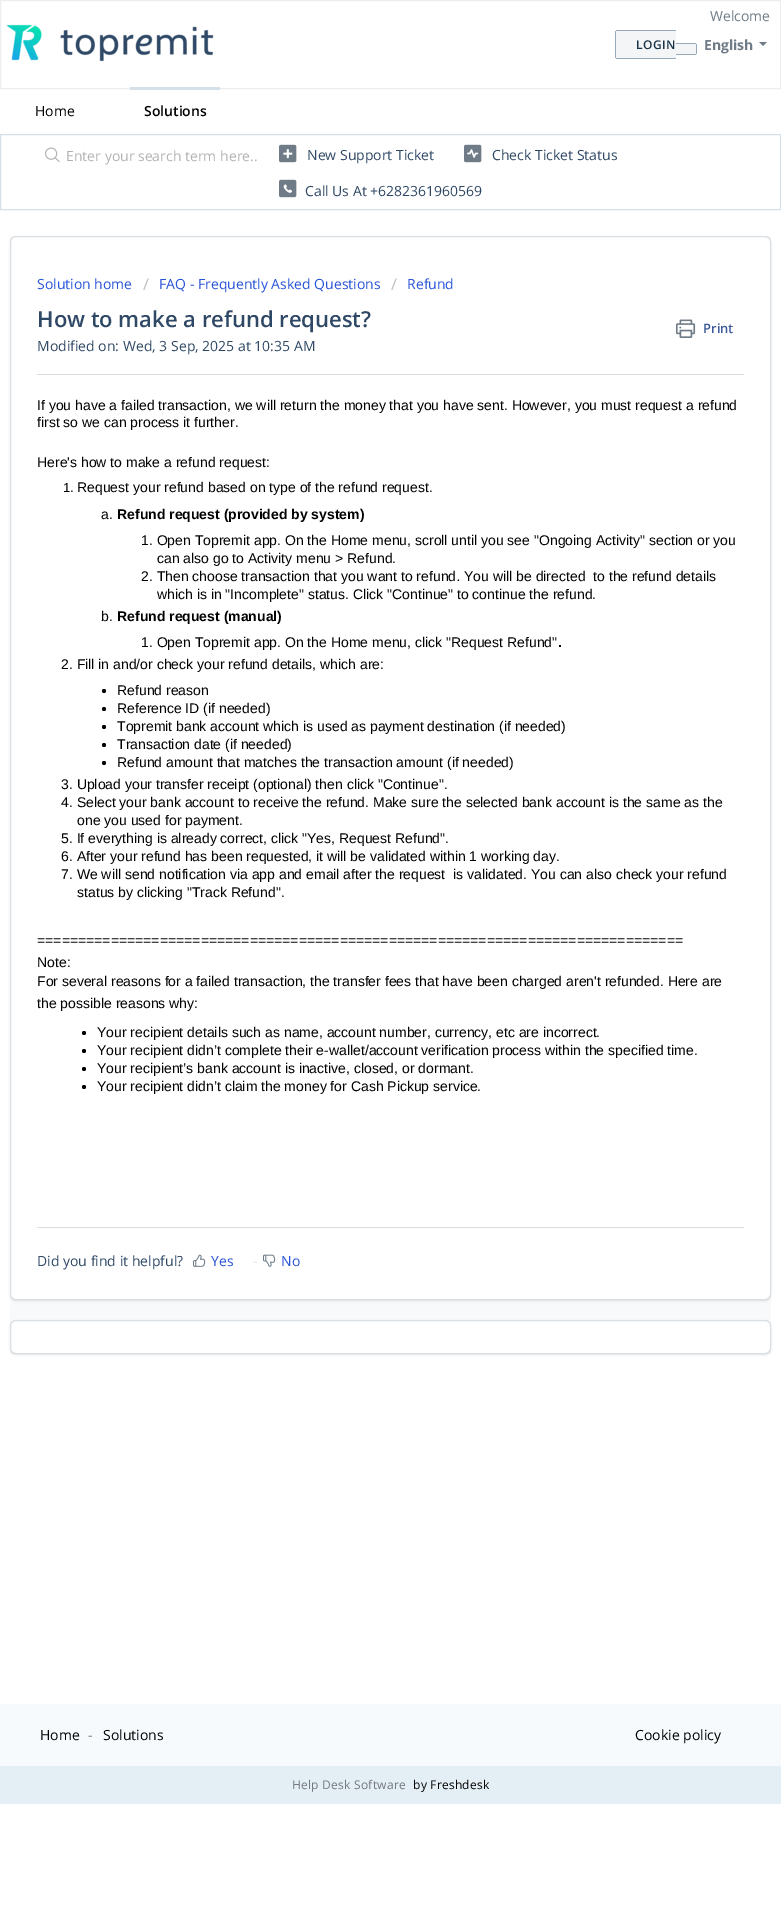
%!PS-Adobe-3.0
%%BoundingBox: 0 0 781 1915
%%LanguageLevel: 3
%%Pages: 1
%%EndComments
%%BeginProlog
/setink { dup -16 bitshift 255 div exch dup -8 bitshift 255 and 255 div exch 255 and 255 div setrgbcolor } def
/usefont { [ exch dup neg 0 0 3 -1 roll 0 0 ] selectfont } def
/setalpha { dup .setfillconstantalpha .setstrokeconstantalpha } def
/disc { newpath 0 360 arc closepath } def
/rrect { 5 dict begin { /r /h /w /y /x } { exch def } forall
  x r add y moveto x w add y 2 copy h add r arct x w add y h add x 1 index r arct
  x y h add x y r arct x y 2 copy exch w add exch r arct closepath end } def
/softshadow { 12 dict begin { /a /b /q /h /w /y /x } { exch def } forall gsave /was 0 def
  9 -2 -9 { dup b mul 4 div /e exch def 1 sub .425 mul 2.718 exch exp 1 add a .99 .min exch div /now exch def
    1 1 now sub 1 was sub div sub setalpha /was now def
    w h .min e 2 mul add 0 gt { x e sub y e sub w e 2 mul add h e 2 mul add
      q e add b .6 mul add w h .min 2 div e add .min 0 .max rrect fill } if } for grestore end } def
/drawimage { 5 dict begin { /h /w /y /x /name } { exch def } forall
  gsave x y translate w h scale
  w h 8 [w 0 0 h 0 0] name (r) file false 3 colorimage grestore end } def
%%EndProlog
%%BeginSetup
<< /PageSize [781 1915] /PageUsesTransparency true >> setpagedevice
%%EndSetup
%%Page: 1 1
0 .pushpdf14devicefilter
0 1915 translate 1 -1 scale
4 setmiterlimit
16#FFFFFF setink
0 0 781 1915 rectfill
16#EBEEF0 setink
0.5 0.5 780 88 rectstroke
(img1.raw) 6 24 208 38 drawimage
/OpenSans-Regular 14 usefont
16#6F7C87 setink
710 21 moveto (Welcome) show
16#F3F5F7 setink
617 30 moveto 676 30 lineto 676 59 lineto 617 59 lineto 616 59 615 58 615 57 curveto 615 32 lineto 615 31 616 30 617 30 curveto closepath fill
/OpenSans-SemiBold 12 usefont
16#183247 setink
636 49 moveto 0.5 0 (LOGIN) ashow
[
    [616 30 60 1 16#97A9BA]
    [616 58 60 1 16#97A9BA]
    [615 31 1 27 16#97A9BA]
] { aload pop setink rectfill } forall
16#F3F5F7 setink
676 43 moveto 695 43 lineto 696 43 697 44 697 45 curveto 697 53 lineto 697 54 696 55 695 55 curveto 676 55 lineto closepath fill
[
    [676 43 20 1 16#97A9BA]
    [696 44 1 10 16#97A9BA]
    [676 54 20 1 16#97A9BA]
] { aload pop setink rectfill } forall
/OpenSans-Bold 14 usefont
16#6F7C87 setink
704 50 moveto (English) show
759 42 moveto 767 42 lineto 763 46 lineto closepath fill
/OpenSans-Regular 14 usefont
16#000000 setink
35 116 moveto (Home) show
16#D5E0E8 setink
130 87 90 3 rectfill
/OpenSans-SemiBold 14 usefont
16#000000 setink
144 116 moveto (Solutions) show
16#D5E0E8 setink
0.5 134.5 780 75 rectstroke
(img2.raw) 45 147 15 15 drawimage
/OpenSans-Regular 14 usefont
16#B2B2B2 setink
66 161 moveto (Enter your search term here..) show
(img3.raw) 279 144 18 19 drawimage
16#2E4865 setink
307 160 moveto (New Support Ticket) show
(img4.raw) 464 144 18 19 drawimage
492 160 moveto (Check Ticket Status) show
(img5.raw) 279 179 18 19 drawimage
305 196 moveto (Call Us At +6282361960569) show
16#F8F9FA setink
10 236 761 1118 rectfill
16#3F3F44 setink
10 237 761 1064 6 1 0.15 softshadow
16#FFFFFF setink
10.5 236.5 760 1063 5.5 rrect gsave fill grestore
16#DADFE3 setink
stroke
16#2753D7 setink
37 289 moveto (Solution home) show
/OpenSans-Regular 16 usefont
16#BBBBBB setink
143 290 moveto (/) show
/OpenSans-Regular 14 usefont
16#2753D7 setink
159 289 moveto (FAQ - Frequently Asked Questions) show
/OpenSans-Regular 16 usefont
16#BBBBBB setink
391 290 moveto (/) show
/OpenSans-Regular 14 usefont
16#2753D7 setink
407 289 moveto (Refund) show
/OpenSans-SemiBold 22 usefont
16#2E4865 setink
37 327 moveto (How to make a refund request?) show
(img6.raw) 676 319 20 19 drawimage
/OpenSans-SemiBold 13 usefont
16#3B5998 setink
703 333 moveto (Print) show
/OpenSans-Regular 14 usefont
16#2E4865 setink
37 351 moveto (Modified on: Wed, 3 Sep, 2025 at 10:35 AM) show
16#DCDCDC setink
37 374 707 1 rectfill
/LiberationSans-Regular 14 usefont
16#000000 setink
[
    [(If you have a failed transaction, we will return the money that you have sent. However, you must request a refund) 37 410]
    [(first so we can process it further.) 37 427]
    [(Here's how to make a refund request:) 37 467]
] { aload pop moveto show } forall
/LiberationSans-Regular 13 usefont
63 492 moveto (1.) show
/LiberationSans-Regular 14 usefont
77 492 moveto (Request your refund based on type of the refund request.) show
101 519 moveto (a.) show
/LiberationSans-Bold 14 usefont
117 519 moveto (Refund request \(provided by system\)) show
/LiberationSans-Regular 14 usefont
[
    [(1. Open Topremit app. On the Home menu, scroll until you see "Ongoing Activity" section or you) 141 545]
    [(can also go to Activity menu > Refund.) 157 563]
    [(2. Then choose transaction that you want to refund) 141 581]
] { aload pop moveto show } forall
/LiberationSans-Italic 14 usefont
457 581 moveto (.) show
/LiberationSans-Regular 14 usefont
[
    [(You will be directed  to the refund details) 464 581]
    [(which is in "Incomplete" status. Click "Continue" to continue the refund.) 157 599]
    [(b.) 101 621]
] { aload pop moveto show } forall
/LiberationSans-Bold 14 usefont
117 621 moveto (Refund request \(manual\)) show
/LiberationSans-Regular 14 usefont
141 647 moveto (1. Open Topremit app. On the Home menu, click "Request Refund") show
/LiberationSans-Bold 14 usefont
558 647 moveto (.) show
/LiberationSans-Regular 14 usefont
61 669 moveto (2. Fill in and/or check your refund details, which are:) show
104 691 2 disc fill
117 695 moveto (Refund reason) show
104 709 2 disc fill
117 713 moveto (Reference ID \(if needed\)) show
104 727 2 disc fill
117 731 moveto (Topremit bank account which is used as payment destination \(if needed\)) show
104 745 2 disc fill
117 749 moveto (Transaction date \(if needed\)) show
104 763 2 disc fill
[
    [(Refund amount that matches the transaction amount \(if needed\)) 117 767]
    [(3. Upload your transfer receipt \(optional\) then click "Continue".) 61 789]
    [(4. Select your bank account to receive the refund. Make sure the selected bank account is the same as the) 61 807]
    [(one you used for payment.) 77 825]
    [(5. If everything is already correct, click "Yes, Request Refund".) 61 843]
    [(6. After your refund has been requested, it will be validated within 1 working day.) 61 861]
    [(7. We will send notification via app and email after the request  is validated. You can also check your refund) 61 879]
    [(status by clicking "Track Refund".) 77 897]
    [(===============================================================================) 37 945]
    [(Note:) 37 967]
    [(For several reasons for a failed transaction, the transfer fees that have been charged aren't refunded. Here are) 37 986]
    [(the possible reasons why:) 37 1008]
] { aload pop moveto show } forall
84 1033 2 disc fill
97 1037 moveto (Your recipient details such as name, account number, currency, etc are incorrect.) show
84 1051 2 disc fill
97 1055 moveto (Your recipient didn’t complete their e-wallet/account verification process within the specified time.) show
84 1069 2 disc fill
97 1073 moveto (Your recipient’s bank account is inactive, closed, or dormant.) show
84 1087 2 disc fill
97 1091 moveto (Your recipient didn’t claim the money for Cash Pickup service.) show
16#DCDCDC setink
37 1227 707 1 rectfill
/OpenSans-Regular 14 usefont
16#2E4865 setink
37 1266 moveto (Did you find it helpful?) show
(img7.raw) 193 1254 13 13 drawimage
16#2753D7 setink
211 1266 moveto (Yes) show
16#E5E5E5 setink
253 1266 moveto (-) show
(img8.raw) 263 1254 13 13 drawimage
16#2753D7 setink
281 1266 moveto (No) show
16#3F3F44 setink
10 1321 761 34 6 1 0.15 softshadow
16#FFFFFF setink
10.5 1320.5 760 33 5.5 rrect gsave fill grestore
16#DADFE3 setink
stroke
16#F7FAFC setink
0 1704 781 62 rectfill
16#000000 setink
40 1740 moveto (Home) show
16#7C7D7E setink
88 1740 moveto (-) show
16#000000 setink
103 1740 moveto (Solutions) show
635 1740 moveto (Cookie policy) show
16#E4EEF5 setink
0 1766 781 38 rectfill
/OpenSans-Regular 12 usefont
16#72777B setink
292 1789 moveto 0.25 0 (Help Desk Software) ashow
16#000000 setink
413 1789 moveto 0.25 0 (by Freshdesk) ashow
.poppdf14devicefilter showpage
%%EOF
